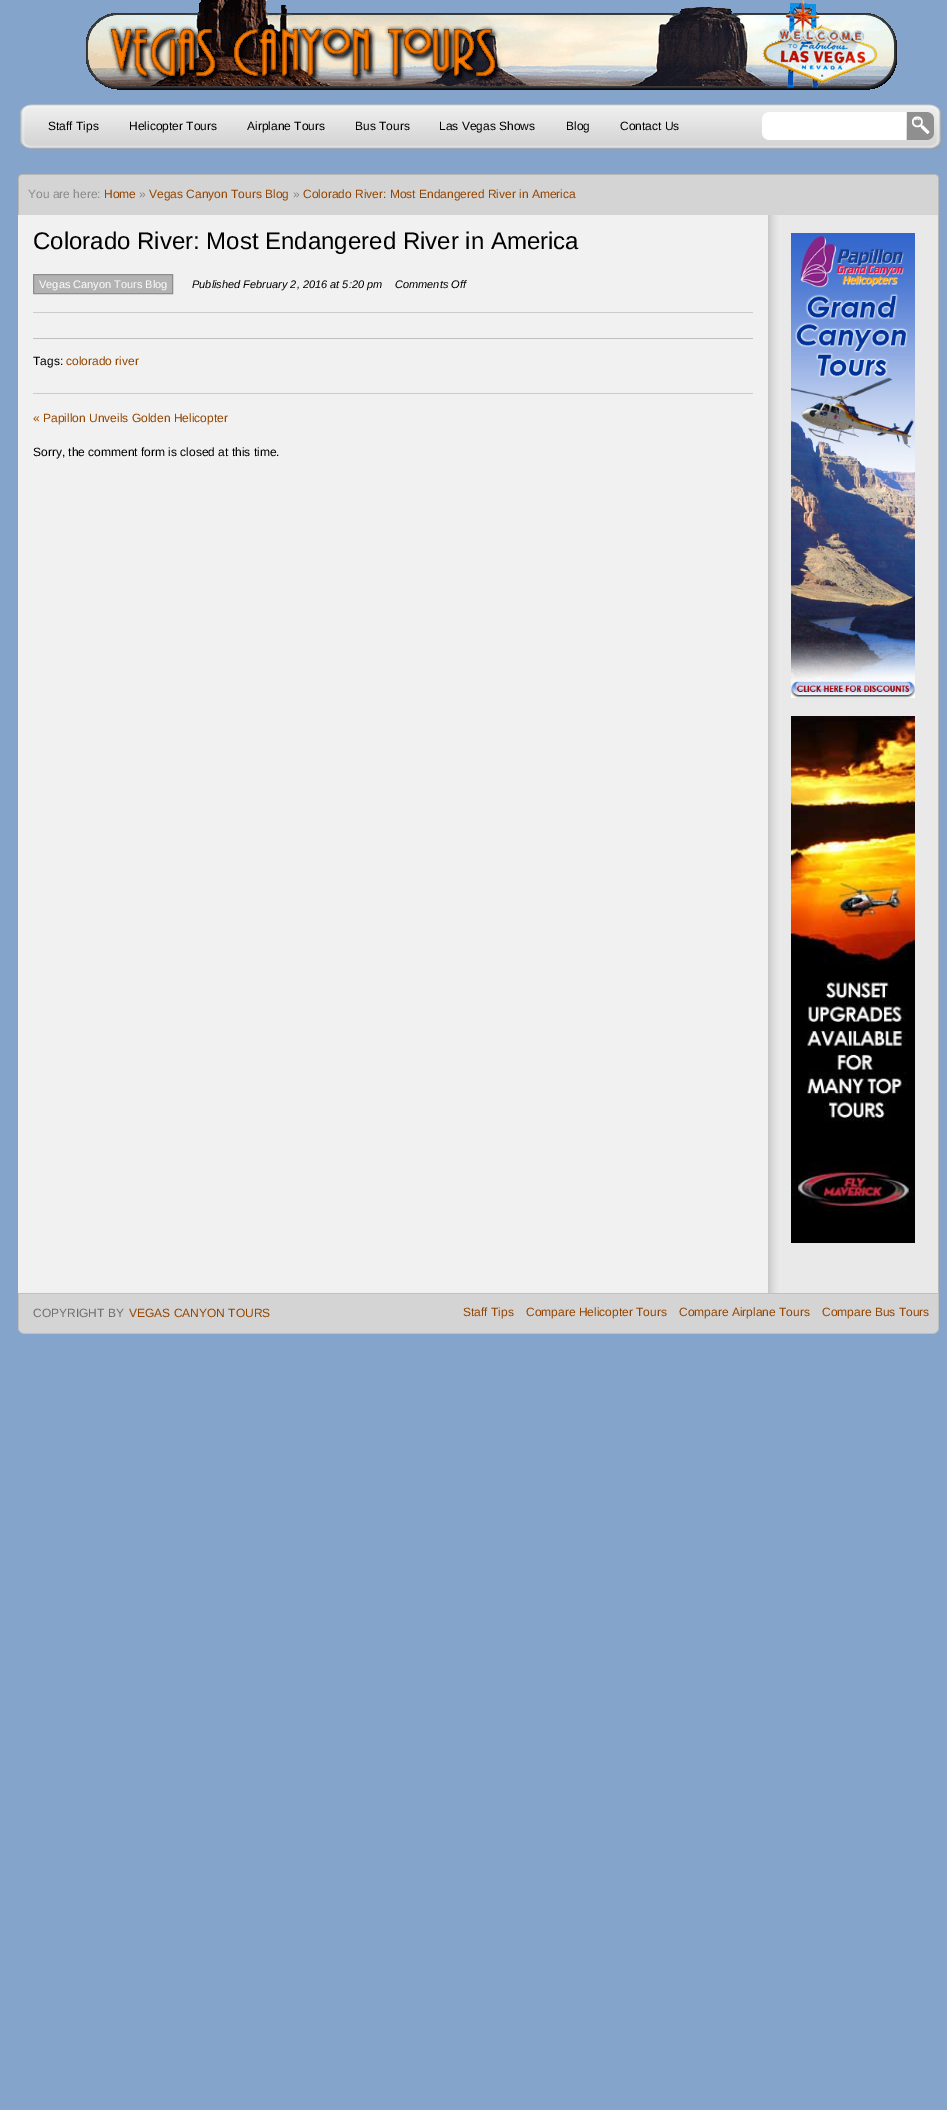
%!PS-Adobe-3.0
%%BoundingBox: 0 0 947 2110
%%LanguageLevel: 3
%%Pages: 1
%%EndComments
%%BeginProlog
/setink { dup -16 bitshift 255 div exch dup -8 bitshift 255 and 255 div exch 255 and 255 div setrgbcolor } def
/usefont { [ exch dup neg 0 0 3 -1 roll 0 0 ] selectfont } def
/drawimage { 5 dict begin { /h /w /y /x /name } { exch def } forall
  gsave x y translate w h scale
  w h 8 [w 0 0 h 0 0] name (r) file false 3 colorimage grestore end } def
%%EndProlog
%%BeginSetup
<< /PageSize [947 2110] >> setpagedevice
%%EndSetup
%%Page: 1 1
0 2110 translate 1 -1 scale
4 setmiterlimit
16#84A4CC setink
0 0 947 2110 rectfill
(img1.raw) 86 0 811 90 drawimage
(img2.raw) 20 104 924 47 drawimage
/LiberationSans-Regular 12 usefont
16#000000 setink
[
    [(Staff Tips) 48 130]
    [(Helicopter Tours) 129 130]
    [(Airplane Tours) 247 130]
    [(Bus Tours) 355 130]
    [(Las Vegas Shows) 439 130]
    [(Blog) 566 130]
    [(Contact Us) 620 130]
] { aload pop moveto show } forall
(img3.raw) 762 112 144 28 drawimage
(img4.raw) 907 112 27 28 drawimage
(img5.raw) 18 174 921 41 drawimage
16#8A8A8A setink
28 198 moveto (You are here:) show
16#944500 setink
104 198 moveto (Home) show
16#8A8A8A setink
139 198 moveto (») show
16#944500 setink
149 198 moveto (Vegas Canyon Tours Blog) show
16#8A8A8A setink
293 198 moveto (») show
16#944500 setink
303 198 moveto (Colorado River: Most Endangered River in America) show
(img6.raw) 18 215 921 1078 drawimage
16#CCCCCC setink
33 393 720 1 rectfill
/LiberationSans-Regular 24 usefont
16#000000 setink
33 249 moveto (Colorado River: Most Endangered River in America) show
16#CCCCCC setink
33 312 720 1 rectfill
16#B3B3B3 setink
33.5 274.5 moveto 172.5 274.5 lineto 172.5 293.5 lineto 33.5 293.5 lineto closepath gsave fill grestore
16#8E8E8E setink
stroke
/LiberationSans-Regular 11 usefont
16#FFFFFF setink
39 288 moveto (Vegas Canyon Tours Blog) show
/LiberationSans-Italic 11 usefont
16#000000 setink
192 288 moveto (Published February 2, 2016 at 5:20 pm) show
395 288 moveto (Comments Off) show
16#C0C0C0 setink
33 338 720 1 rectfill
/LiberationSans-Regular 12 usefont
16#000000 setink
33 365 moveto (Tags:) show
16#944500 setink
66 365 moveto (colorado river) show
33 422 moveto (« Papillon Unveils Golden Helicopter) show
16#000000 setink
33 456 moveto (Sorry, the comment form is closed at this time.) show
(img7.raw) 791 233 124 465 drawimage
(img8.raw) 791 716 124 527 drawimage
(img9.raw) 18 1293 921 41 drawimage
16#6E6E6E setink
33 1317 moveto (COPYRIGHT BY) show
16#944500 setink
[
    [(VEGAS CANYON TOURS) 129 1317]
    [(Staff Tips) 463 1316]
    [(Compare Helicopter Tours) 526 1316]
    [(Compare Airplane Tours) 679 1316]
    [(Compare Bus Tours) 822 1316]
] { aload pop moveto show } forall
showpage
%%EOF
